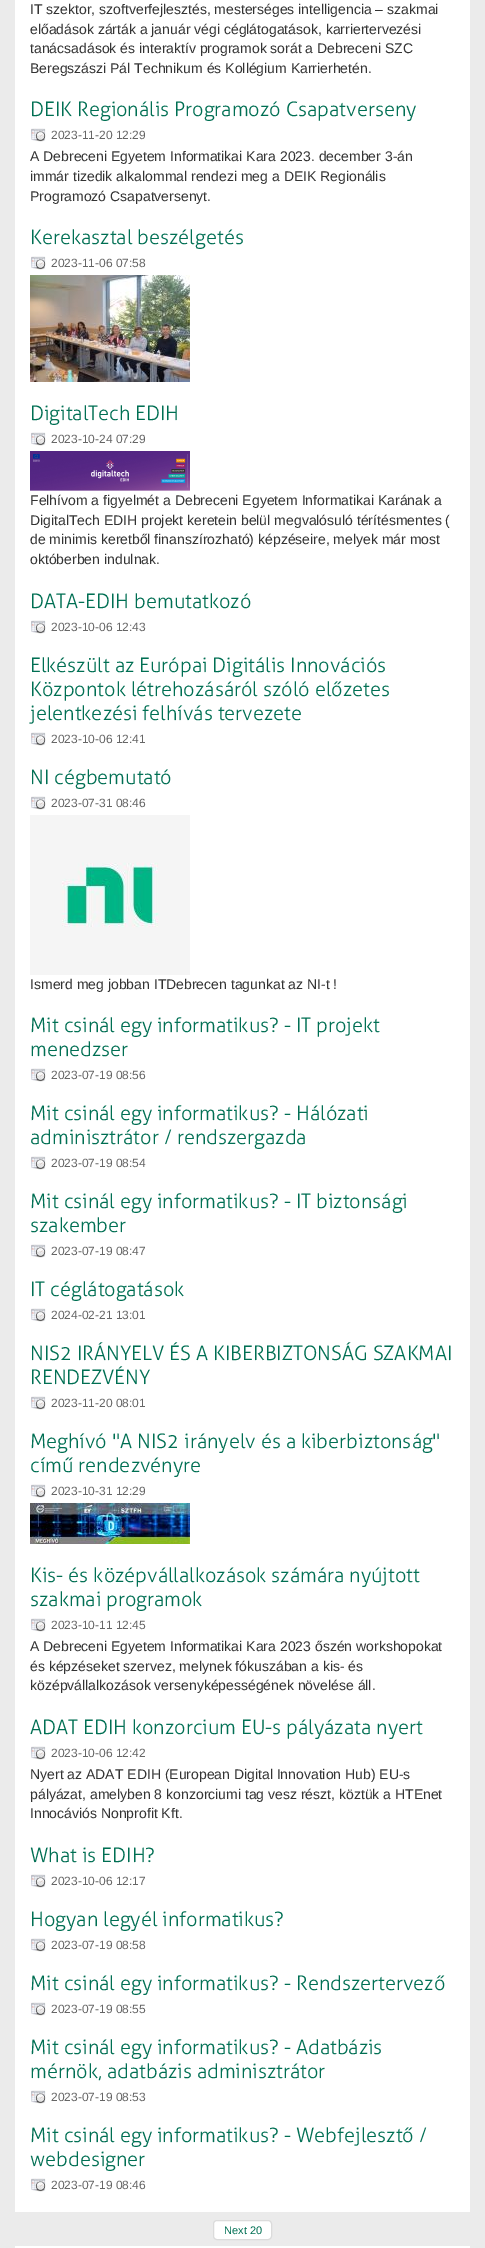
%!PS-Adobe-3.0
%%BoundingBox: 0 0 485 2248
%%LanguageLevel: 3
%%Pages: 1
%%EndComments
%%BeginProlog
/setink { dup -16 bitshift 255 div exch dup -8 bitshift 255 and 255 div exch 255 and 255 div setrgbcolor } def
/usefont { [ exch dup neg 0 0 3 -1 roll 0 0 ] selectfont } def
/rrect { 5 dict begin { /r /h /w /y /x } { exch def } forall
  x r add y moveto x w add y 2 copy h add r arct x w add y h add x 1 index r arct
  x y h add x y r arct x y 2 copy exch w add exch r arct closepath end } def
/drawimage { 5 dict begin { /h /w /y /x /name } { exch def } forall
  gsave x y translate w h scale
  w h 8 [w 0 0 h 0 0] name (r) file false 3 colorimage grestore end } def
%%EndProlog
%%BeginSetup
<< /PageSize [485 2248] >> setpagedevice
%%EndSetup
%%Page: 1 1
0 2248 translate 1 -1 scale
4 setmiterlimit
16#EBEBEB setink
0 0 485 2248 rectfill
16#FFFFFF setink
15 0 455 2248 rectfill
/LiberationSans-Regular 14 usefont
16#333333 setink
[
    [(IT szektor, szoftverfejlesztés, mesterséges intelligencia – szakmai) 30 14]
    [(előadások zárták a január végi céglátogatások, karriertervezési) 30 34]
    [(tanácsadások és interaktív programok sorát a Debreceni SZC) 30 53]
    [(Beregszászi Pál Technikum és Kollégium Karrierhetén.) 30 73]
] { aload pop moveto show } forall
/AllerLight-Light 20 usefont
16#006F53 setink
30 116 moveto (DEIK Regionális Programozó Csapatverseny) show
(img1.raw) 31 128 15 14 drawimage
/LiberationSans-Regular 12 usefont
16#666666 setink
51 139 moveto (2023-11-20 12:29) show
/LiberationSans-Regular 14 usefont
16#333333 setink
[
    [(A Debreceni Egyetem Informatikai Kara 2023. december 3-án) 30 161]
    [(immár tizedik alkalommal rendezi meg a DEIK Regionális) 30 181]
    [(Programozó Csapatversenyt.) 30 201]
] { aload pop moveto show } forall
/AllerLight-Light 20 usefont
16#006F53 setink
30 244 moveto (Kerekasztal beszélgetés) show
(img1.raw) 31 256 15 14 drawimage
/LiberationSans-Regular 12 usefont
16#666666 setink
51 267 moveto (2023-11-06 07:58) show
(img2.raw) 30 275 160 107 drawimage
/AllerLight-Light 20 usefont
16#006F53 setink
30 420 moveto (DigitalTech EDIH) show
(img1.raw) 31 432 15 14 drawimage
/LiberationSans-Regular 12 usefont
16#666666 setink
51 443 moveto (2023-10-24 07:29) show
(img3.raw) 30 451 160 40 drawimage
/LiberationSans-Regular 14 usefont
16#333333 setink
[
    [(Felhívom a figyelmét a Debreceni Egyetem Informatikai Karának a) 30 505]
    [(DigitalTech EDIH projekt keretein belül megvalósuló térítésmentes \() 30 525]
    [(de minimis keretből finanszírozható\) képzéseire, melyek már most) 30 544]
    [(októberben indulnak.) 30 564]
] { aload pop moveto show } forall
/AllerLight-Light 20 usefont
16#006F53 setink
30 608 moveto (DATA-EDIH bemutatkozó) show
(img1.raw) 31 620 15 14 drawimage
/LiberationSans-Regular 12 usefont
16#666666 setink
51 631 moveto (2023-10-06 12:43) show
/AllerLight-Light 20 usefont
16#006F53 setink
[
    [(Elkészült az Európai Digitális Innovációs) 30 672]
    [(Központok létrehozásáról szóló előzetes) 30 696]
    [(jelentkezési felhívás tervezete) 30 720]
] { aload pop moveto show } forall
(img1.raw) 31 732 15 14 drawimage
/LiberationSans-Regular 12 usefont
16#666666 setink
51 743 moveto (2023-10-06 12:41) show
/AllerLight-Light 20 usefont
16#006F53 setink
30 784 moveto (NI cégbemutató) show
(img1.raw) 31 796 15 14 drawimage
/LiberationSans-Regular 12 usefont
16#666666 setink
51 807 moveto (2023-07-31 08:46) show
(img4.raw) 30 815 160 160 drawimage
/LiberationSans-Regular 14 usefont
16#333333 setink
30 989 moveto (Ismerd meg jobban ITDebrecen tagunkat az NI-t !) show
/AllerLight-Light 20 usefont
16#006F53 setink
30 1032 moveto (Mit csinál egy informatikus? - IT projekt) show
30 1056 moveto (menedzser) show
(img1.raw) 31 1068 15 14 drawimage
/LiberationSans-Regular 12 usefont
16#666666 setink
51 1079 moveto (2023-07-19 08:56) show
/AllerLight-Light 20 usefont
16#006F53 setink
30 1120 moveto (Mit csinál egy informatikus? - Hálózati) show
30 1144 moveto (adminisztrátor / rendszergazda) show
(img1.raw) 31 1156 15 14 drawimage
/LiberationSans-Regular 12 usefont
16#666666 setink
51 1167 moveto (2023-07-19 08:54) show
/AllerLight-Light 20 usefont
16#006F53 setink
30 1208 moveto (Mit csinál egy informatikus? - IT biztonsági) show
30 1232 moveto (szakember) show
(img1.raw) 31 1244 15 14 drawimage
/LiberationSans-Regular 12 usefont
16#666666 setink
51 1255 moveto (2023-07-19 08:47) show
/AllerLight-Light 20 usefont
16#006F53 setink
30 1296 moveto (IT céglátogatások) show
(img1.raw) 31 1308 15 14 drawimage
/LiberationSans-Regular 12 usefont
16#666666 setink
51 1319 moveto (2024-02-21 13:01) show
/AllerLight-Light 20 usefont
16#006F53 setink
30 1360 moveto (NIS2 IRÁNYELV ÉS A KIBERBIZTONSÁG SZAKMAI) show
30 1384 moveto (RENDEZVÉNY) show
(img1.raw) 31 1396 15 14 drawimage
/LiberationSans-Regular 12 usefont
16#666666 setink
51 1407 moveto (2023-11-20 08:01) show
/AllerLight-Light 20 usefont
16#006F53 setink
30 1448 moveto (Meghívó "A NIS2 irányelv és a kiberbiztonság") show
30 1472 moveto (című rendezvényre) show
(img1.raw) 31 1484 15 14 drawimage
/LiberationSans-Regular 12 usefont
16#666666 setink
51 1495 moveto (2023-10-31 12:29) show
(img5.raw) 30 1503 160 41 drawimage
/AllerLight-Light 20 usefont
16#006F53 setink
30 1582 moveto (Kis- és középvállalkozások számára nyújtott) show
30 1606 moveto (szakmai programok) show
(img1.raw) 31 1618 15 14 drawimage
/LiberationSans-Regular 12 usefont
16#666666 setink
51 1629 moveto (2023-10-11 12:45) show
/LiberationSans-Regular 14 usefont
16#333333 setink
[
    [(A Debreceni Egyetem Informatikai Kara 2023 őszén workshopokat) 30 1651]
    [(és képzéseket szervez, melynek fókuszában a kis- és) 30 1671]
    [(középvállalkozások versenyképességének növelése áll.) 30 1690]
] { aload pop moveto show } forall
/AllerLight-Light 20 usefont
16#006F53 setink
30 1734 moveto (ADAT EDIH konzorcium EU-s pályázata nyert) show
(img1.raw) 31 1746 15 14 drawimage
/LiberationSans-Regular 12 usefont
16#666666 setink
51 1757 moveto (2023-10-06 12:42) show
/LiberationSans-Regular 14 usefont
16#333333 setink
[
    [(Nyert az ADAT EDIH \(European Digital Innovation Hub\) EU-s) 30 1779]
    [(pályázat, amelyben 8 konzorciumi tag vesz részt, köztük a HTEnet) 30 1799]
    [(Innocáviós Nonprofit Kft.) 30 1818]
] { aload pop moveto show } forall
/AllerLight-Light 20 usefont
16#006F53 setink
30 1862 moveto (What is EDIH?) show
(img1.raw) 31 1874 15 14 drawimage
/LiberationSans-Regular 12 usefont
16#666666 setink
51 1885 moveto (2023-10-06 12:17) show
/AllerLight-Light 20 usefont
16#006F53 setink
30 1926 moveto (Hogyan legyél informatikus?) show
(img1.raw) 31 1938 15 14 drawimage
/LiberationSans-Regular 12 usefont
16#666666 setink
51 1949 moveto (2023-07-19 08:58) show
/AllerLight-Light 20 usefont
16#006F53 setink
30 1990 moveto (Mit csinál egy informatikus? - Rendszertervező) show
(img1.raw) 31 2002 15 14 drawimage
/LiberationSans-Regular 12 usefont
16#666666 setink
51 2013 moveto (2023-07-19 08:55) show
/AllerLight-Light 20 usefont
16#006F53 setink
30 2054 moveto (Mit csinál egy informatikus? - Adatbázis) show
30 2078 moveto (mérnök, adatbázis adminisztrátor) show
(img1.raw) 31 2090 15 14 drawimage
/LiberationSans-Regular 12 usefont
16#666666 setink
51 2101 moveto (2023-07-19 08:53) show
/AllerLight-Light 20 usefont
16#006F53 setink
30 2142 moveto (Mit csinál egy informatikus? - Webfejlesztő /) show
30 2166 moveto (webdesigner) show
(img1.raw) 31 2178 15 14 drawimage
/LiberationSans-Regular 12 usefont
16#666666 setink
51 2189 moveto (2023-07-19 08:46) show
16#EBEBEB setink
15 2212 455 34 rectfill
16#FFFFFF setink
213.5 2220.5 58 19 3.5 rrect gsave fill grestore
16#DBDBDB setink
stroke
/LiberationSans-Regular 11 usefont
16#006F53 setink
224 2234 moveto (Next 20) show
showpage
%%EOF
